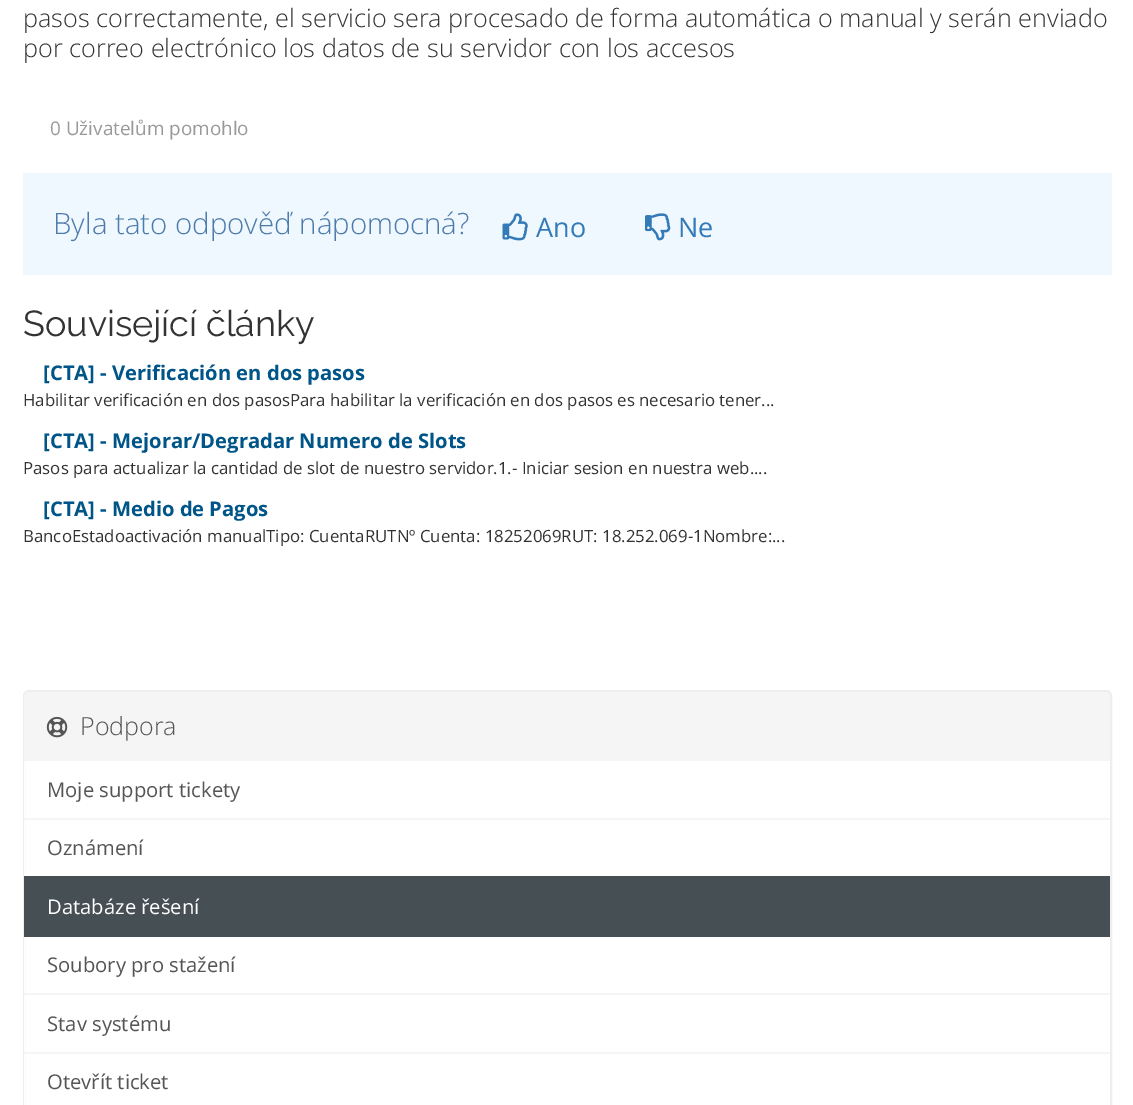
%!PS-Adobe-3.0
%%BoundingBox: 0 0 1133 1105
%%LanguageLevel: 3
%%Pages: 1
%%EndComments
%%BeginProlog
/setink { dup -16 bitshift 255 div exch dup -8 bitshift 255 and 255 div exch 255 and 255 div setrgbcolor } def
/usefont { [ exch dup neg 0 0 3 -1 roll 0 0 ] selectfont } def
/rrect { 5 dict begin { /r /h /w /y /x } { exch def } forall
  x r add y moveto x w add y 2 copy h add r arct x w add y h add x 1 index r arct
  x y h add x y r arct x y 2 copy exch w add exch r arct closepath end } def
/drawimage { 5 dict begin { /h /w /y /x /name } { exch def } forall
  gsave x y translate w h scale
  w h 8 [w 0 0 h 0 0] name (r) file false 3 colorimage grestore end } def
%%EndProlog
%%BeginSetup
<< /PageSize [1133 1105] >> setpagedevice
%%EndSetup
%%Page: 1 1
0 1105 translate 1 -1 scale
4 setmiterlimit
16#FFFFFF setink
0 0 1133 1105 rectfill
/OpenSans-Light 25.2 usefont
16#333333 setink
23 27 moveto (pasos correctamente, el servicio sera procesado de forma automática o manual y serán enviado) show
23 57 moveto (por correo electrónico los datos de su servidor con los accesos) show
/OpenSans-Regular 18.9 usefont
16#999999 setink
50 135 moveto (0 Uživatelům pomohlo) show
16#EFF7FF setink
23 173 1089 102 rectfill
/OpenSans-Light 29.4 usefont
16#4D7CAB setink
53 234 moveto (Byla tato odpověď nápomocná?) show
(img1.raw) 502 213 26 28 drawimage
/OpenSans-Regular 27 usefont
16#337AB7 setink
536 237 moveto (Ano) show
(img2.raw) 645 213 26 28 drawimage
678 237 moveto (Ne) show
/Raleway-Regular 36 usefont
16#333333 setink
23 336 moveto (Související články) show
/OpenSans-Bold 20.2 usefont
16#005588 setink
43 380 moveto ([CTA] - Verificación en dos pasos) show
/OpenSans-Regular 16.8 usefont
16#333333 setink
23 406 moveto (Habilitar verificación en dos pasosPara habilitar la verificación en dos pasos es necesario tener...) show
/OpenSans-Bold 20.2 usefont
16#005588 setink
43 448 moveto ([CTA] - Mejorar/Degradar Numero de Slots) show
/OpenSans-Regular 16.8 usefont
16#333333 setink
23 474 moveto (Pasos para actualizar la cantidad de slot de nuestro servidor.1.- Iniciar sesion en nuestra web....) show
/OpenSans-Bold 20.2 usefont
16#005588 setink
43 516 moveto ([CTA] - Medio de Pagos) show
/OpenSans-Regular 16.8 usefont
16#333333 setink
23 542 moveto (BancoEstadoactivación manualTipo: CuentaRUTNº Cuenta: 18252069RUT: 18.252.069-1Nombre:...) show
16#EEEEEE setink
2 setlinewidth
24 691 1087 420 5 rrect stroke
16#F5F5F5 setink
29 692 moveto 1105 692 lineto 1108 692 1110 694 1110 697 curveto 1110 761 lineto 24 761 lineto 24 697 lineto 24 694 26 692 29 692 curveto closepath fill
(img3.raw) 46 716 22 22 drawimage
/OpenSans-Light 25 usefont
16#555555 setink
80 735 moveto (Podpora) show
16#FFFFFF setink
24 761 1 57 rectfill
/OpenSans-Regular 20.25 usefont
16#555555 setink
47 797 moveto (Moje support tickety) show
16#FFFFFF setink
24 820 1 56 rectfill
16#F5F5F5 setink
24 818 1086 2 rectfill
16#555555 setink
47 855 moveto (Oznámení) show
16#465054 setink
24 876 1086 61 rectfill
16#FFFFFF setink
47 914 moveto (Databáze řešení) show
24 937 1 56 rectfill
16#F5F5F5 setink
24 993 1086 2 rectfill
16#555555 setink
47 972 moveto (Soubory pro stažení) show
16#FFFFFF setink
24 995 1 57 rectfill
16#555555 setink
47 1031 moveto (Stav systému) show
16#FFFFFF setink
24 1054 1 51 rectfill
16#F5F5F5 setink
24 1052 1086 2 rectfill
16#555555 setink
47 1089 moveto (Otevřít ticket) show
showpage
%%EOF
